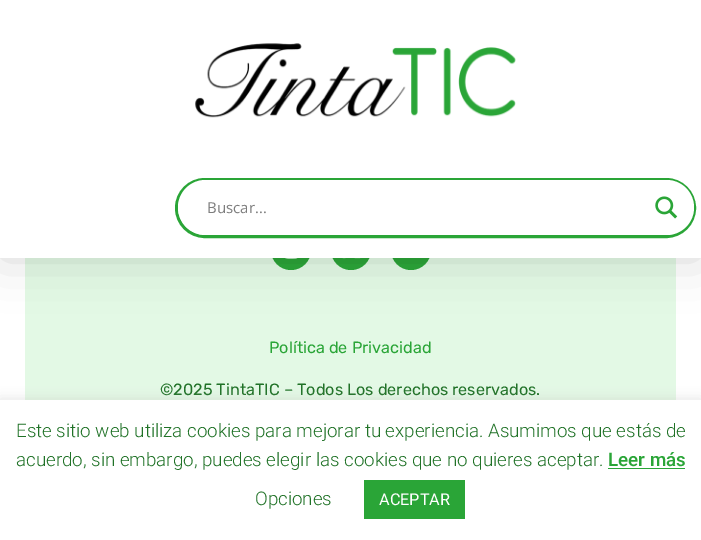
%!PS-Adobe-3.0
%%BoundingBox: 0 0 701 540
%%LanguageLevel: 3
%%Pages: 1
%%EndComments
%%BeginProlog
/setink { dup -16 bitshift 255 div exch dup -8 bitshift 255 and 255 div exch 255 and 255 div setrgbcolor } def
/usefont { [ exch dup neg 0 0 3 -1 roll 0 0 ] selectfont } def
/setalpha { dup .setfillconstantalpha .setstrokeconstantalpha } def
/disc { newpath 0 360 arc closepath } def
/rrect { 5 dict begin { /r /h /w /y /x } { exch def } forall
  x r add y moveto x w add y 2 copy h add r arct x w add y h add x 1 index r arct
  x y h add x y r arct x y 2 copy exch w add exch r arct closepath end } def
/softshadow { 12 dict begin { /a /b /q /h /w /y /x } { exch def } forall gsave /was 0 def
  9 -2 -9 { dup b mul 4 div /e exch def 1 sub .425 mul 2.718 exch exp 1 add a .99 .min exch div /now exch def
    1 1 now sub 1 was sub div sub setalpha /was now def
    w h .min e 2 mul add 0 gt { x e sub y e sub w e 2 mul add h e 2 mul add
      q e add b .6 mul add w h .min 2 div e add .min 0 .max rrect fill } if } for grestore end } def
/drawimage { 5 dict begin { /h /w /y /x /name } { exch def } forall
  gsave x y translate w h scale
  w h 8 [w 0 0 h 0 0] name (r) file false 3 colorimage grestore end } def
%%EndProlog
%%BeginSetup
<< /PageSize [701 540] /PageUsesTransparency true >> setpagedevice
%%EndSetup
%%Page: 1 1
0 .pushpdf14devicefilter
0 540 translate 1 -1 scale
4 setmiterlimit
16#FFFFFF setink
0 0 701 540 rectfill
16#E3F9E5 setink
25 258 651 142 rectfill
16#2AA537 setink
291 250 20 disc fill
(img3.raw) 285 258 13 1 drawimage
351 250 20 disc fill
(img4.raw) 342 258 19 1 drawimage
411 250 20 disc fill
16#000000 setink
0 0 701 258 0 25 0.16 softshadow
16#FFFFFF setink
0 0 701 258 rectfill
(img1.raw) 195 43 321 75 drawimage
16#2AA537 setink
3 setlinewidth
176.5 179.5 518 57 28.5 rrect stroke
16#FFFFFF setink
178 180 516 55 27.5 rrect fill
/OpenSans-Regular 15 usefont
16#7D7D7D setink
207 213 moveto (Buscar...) show
(img2.raw) 655 196 23 23 drawimage
/Rubik-Regular 16.25 usefont
16#2AA537 setink
269 353 moveto (Política de Privacidad) show
16#207227 setink
160 395 moveto (©2025 TintaTIC – Todos Los derechos reservados.) show
16#ACABAB setink
0 399 701 140 0 6 0.3 softshadow
16#FFFFFF setink
0 400 701 140 rectfill
/Roboto-Light 18.75 usefont
16#207227 setink
16 437 moveto (Este sitio web utiliza cookies para mejorar tu experiencia. Asumimos que estás de) show
16 466 moveto (acuerdo, sin embargo, puedes elegir las cookies que no quieres aceptar.) show
/Roboto-Medium 18.75 usefont
16#2AA537 setink
608 466 moveto (Leer más) show
608 468 77 1 rectfill
/Roboto-Light 18.75 usefont
16#207227 setink
255 505 moveto (Opciones) show
16#2AA537 setink
364 480 101 39 rectfill
/Roboto-Regular 16.25 usefont
16#FFFFFF setink
379 505 moveto (ACEPTAR) show
.poppdf14devicefilter showpage
%%EOF
